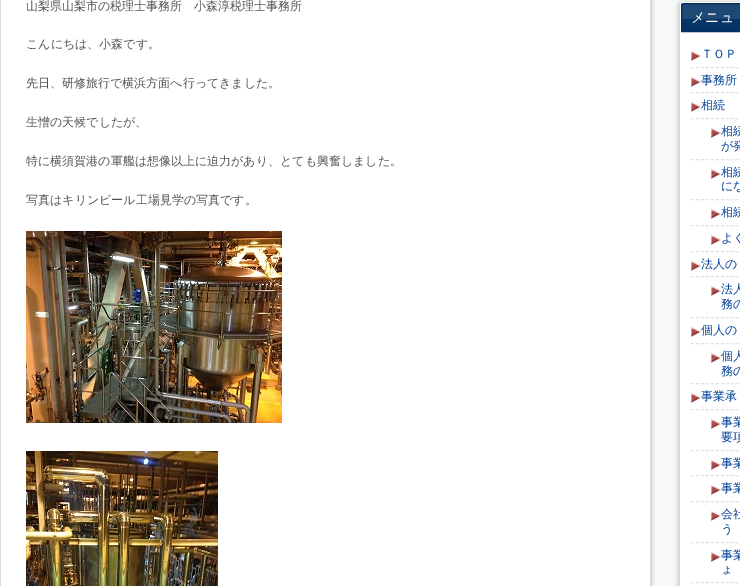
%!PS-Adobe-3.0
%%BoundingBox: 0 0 740 586
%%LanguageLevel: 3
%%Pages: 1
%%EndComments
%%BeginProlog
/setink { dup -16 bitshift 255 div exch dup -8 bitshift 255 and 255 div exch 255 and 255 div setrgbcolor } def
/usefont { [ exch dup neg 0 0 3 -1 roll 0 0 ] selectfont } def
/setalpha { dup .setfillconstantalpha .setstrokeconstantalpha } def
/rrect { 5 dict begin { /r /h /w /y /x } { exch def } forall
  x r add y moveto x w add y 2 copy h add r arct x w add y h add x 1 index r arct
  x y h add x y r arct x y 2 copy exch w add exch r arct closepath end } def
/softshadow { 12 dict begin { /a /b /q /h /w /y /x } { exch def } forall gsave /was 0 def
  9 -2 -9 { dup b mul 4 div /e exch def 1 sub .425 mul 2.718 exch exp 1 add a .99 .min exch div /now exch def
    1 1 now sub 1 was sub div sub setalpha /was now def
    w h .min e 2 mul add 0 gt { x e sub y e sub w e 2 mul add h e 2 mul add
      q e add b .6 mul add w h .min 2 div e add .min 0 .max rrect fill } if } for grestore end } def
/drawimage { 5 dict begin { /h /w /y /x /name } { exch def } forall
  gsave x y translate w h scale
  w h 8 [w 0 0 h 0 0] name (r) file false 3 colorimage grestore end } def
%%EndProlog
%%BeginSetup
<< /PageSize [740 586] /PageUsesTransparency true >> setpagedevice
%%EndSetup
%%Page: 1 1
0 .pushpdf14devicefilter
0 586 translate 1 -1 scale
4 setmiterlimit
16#F7F8F8 setink
0 0 740 586 rectfill
16#C4C4C4 setink
-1 -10 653 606 4 2 1 softshadow
16#FFFFFF setink
1 0 649 586 rectfill
16#D8D8D8 setink
0 -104 moveto 651 -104 lineto 651 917 lineto 651 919 650 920 648 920 curveto 3 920 lineto 1 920 0 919 0 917 curveto closepath 1 -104 moveto 650 -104 lineto 650 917 lineto 650 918 649 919 648 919 curveto 3 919 lineto 2 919 1 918 1 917 curveto closepath eofill
/WenQuanYiZenHei-Medium 12 usefont
16#535353 setink
[
    [(山梨県山梨市の税理士事務所　小森淳税理士事務所) 26 10]
    [(こんにちは、小森です。) 26 48]
    [(先日、研修旅行で横浜方面へ行ってきました。) 26 87]
    [(生憎の天候でしたが、) 26 126]
    [(特に横須賀港の軍艦は想像以上に迫力があり、とても興奮しました。) 26 165]
    [(写真はキリンビール工場見学の写真です。) 26 204]
] { aload pop moveto show } forall
(img1.raw) 26 231 256 192 drawimage
(img2.raw) 26 451 192 135 drawimage
16#C4C4C4 setink
678 2 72 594 4 2 1 softshadow
16#FFFFFF setink
679 2 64 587 3 rrect fill
16#D8D8D8 setink
682 2 moveto 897 2 lineto 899 2 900 3 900 5 curveto 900 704 lineto 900 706 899 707 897 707 curveto 682 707 lineto 680 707 679 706 679 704 curveto 679 5 lineto 679 3 680 2 682 2 curveto closepath 682 2 moveto 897 2 lineto 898 2 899 3 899 5 curveto 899 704 lineto 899 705 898 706 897 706 curveto 682 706 lineto 681 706 680 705 680 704 curveto 680 5 lineto 680 3 681 2 682 2 curveto closepath eofill
16#053566 setink
684 3 moveto 740 3 lineto 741.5 3 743 4.5 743 6 curveto 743 32 lineto 681 32 lineto 681 6 lineto 681 4.5 682.5 3 684 3 curveto closepath fill
16#1E4975 setink
681 4 59 15 rectfill
16#022E5B setink
684 3.5 moveto 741 3.5 lineto 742.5 3.5 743.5 4.5 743.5 6 curveto 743.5 31.5 lineto 681.5 31.5 lineto 681.5 6 lineto 681.5 4.5 682.5 3.5 684 3.5 curveto closepath stroke
/WenQuanYiZenHei-Medium 14 usefont
16#FFFFFF setink
691 22 moveto (メニュ) show
(img3.raw) 691 51 10 10 drawimage
16#E2E2E2 setink
[3 1.97] 0 setdash
691 67.5 moveto 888 67.5 lineto stroke
/WenQuanYiZenHei-Medium 12 usefont
16#004098 setink
701 58 moveto (ＴＯＰ) show
(img3.raw) 691 77 10 10 drawimage
16#E2E2E2 setink
691 92.5 moveto 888 92.5 lineto stroke
16#004098 setink
701 84 moveto (事務所) show
(img3.raw) 691 102 10 10 drawimage
16#E2E2E2 setink
691 118.5 moveto 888 118.5 lineto stroke
16#004098 setink
701 109 moveto (相続) show
(img3.raw) 711 128 10 10 drawimage
16#E2E2E2 setink
691 159.5 moveto 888 159.5 lineto stroke
16#004098 setink
721 135 moveto (相続) show
721 150 moveto (が発) show
(img3.raw) 711 169 10 10 drawimage
16#E2E2E2 setink
691 199.5 moveto 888 199.5 lineto stroke
16#004098 setink
721 176 moveto (相続) show
721 190 moveto (にな) show
(img3.raw) 711 209 10 10 drawimage
16#E2E2E2 setink
691 225.5 moveto 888 225.5 lineto stroke
16#004098 setink
721 216 moveto (相続) show
(img3.raw) 711 235 10 10 drawimage
16#E2E2E2 setink
691 251.5 moveto 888 251.5 lineto stroke
16#004098 setink
721 242 moveto (よく) show
(img3.raw) 691 261 10 10 drawimage
16#E2E2E2 setink
691 276.5 moveto 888 276.5 lineto stroke
16#004098 setink
701 268 moveto (法人の) show
(img3.raw) 711 286 10 10 drawimage
16#E2E2E2 setink
691 317.5 moveto 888 317.5 lineto stroke
16#004098 setink
721 293 moveto (法人) show
721 308 moveto (務の) show
(img3.raw) 691 327 10 10 drawimage
16#E2E2E2 setink
691 343.5 moveto 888 343.5 lineto stroke
16#004098 setink
701 334 moveto (個人の) show
(img3.raw) 711 353 10 10 drawimage
16#E2E2E2 setink
691 383.5 moveto 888 383.5 lineto stroke
16#004098 setink
721 360 moveto (個人) show
721 375 moveto (務の) show
(img3.raw) 691 393 10 10 drawimage
16#E2E2E2 setink
691 409.5 moveto 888 409.5 lineto stroke
16#004098 setink
701 400 moveto (事業承) show
(img3.raw) 711 419 10 10 drawimage
16#E2E2E2 setink
691 450.5 moveto 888 450.5 lineto stroke
16#004098 setink
721 426 moveto (事業) show
721 441 moveto (要項) show
(img3.raw) 711 460 10 10 drawimage
16#E2E2E2 setink
691 475.5 moveto 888 475.5 lineto stroke
16#004098 setink
721 467 moveto (事業) show
(img3.raw) 711 485 10 10 drawimage
16#E2E2E2 setink
691 501.5 moveto 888 501.5 lineto stroke
16#004098 setink
721 492 moveto (事業) show
(img3.raw) 711 511 10 10 drawimage
16#E2E2E2 setink
691 542.5 moveto 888 542.5 lineto stroke
16#004098 setink
721 518 moveto (会社) show
721 533 moveto (う) show
(img3.raw) 711 552 10 10 drawimage
16#E2E2E2 setink
691 582.5 moveto 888 582.5 lineto stroke
16#004098 setink
721 559 moveto (事業) show
721 573 moveto (ょ) show
.poppdf14devicefilter showpage
%%EOF
